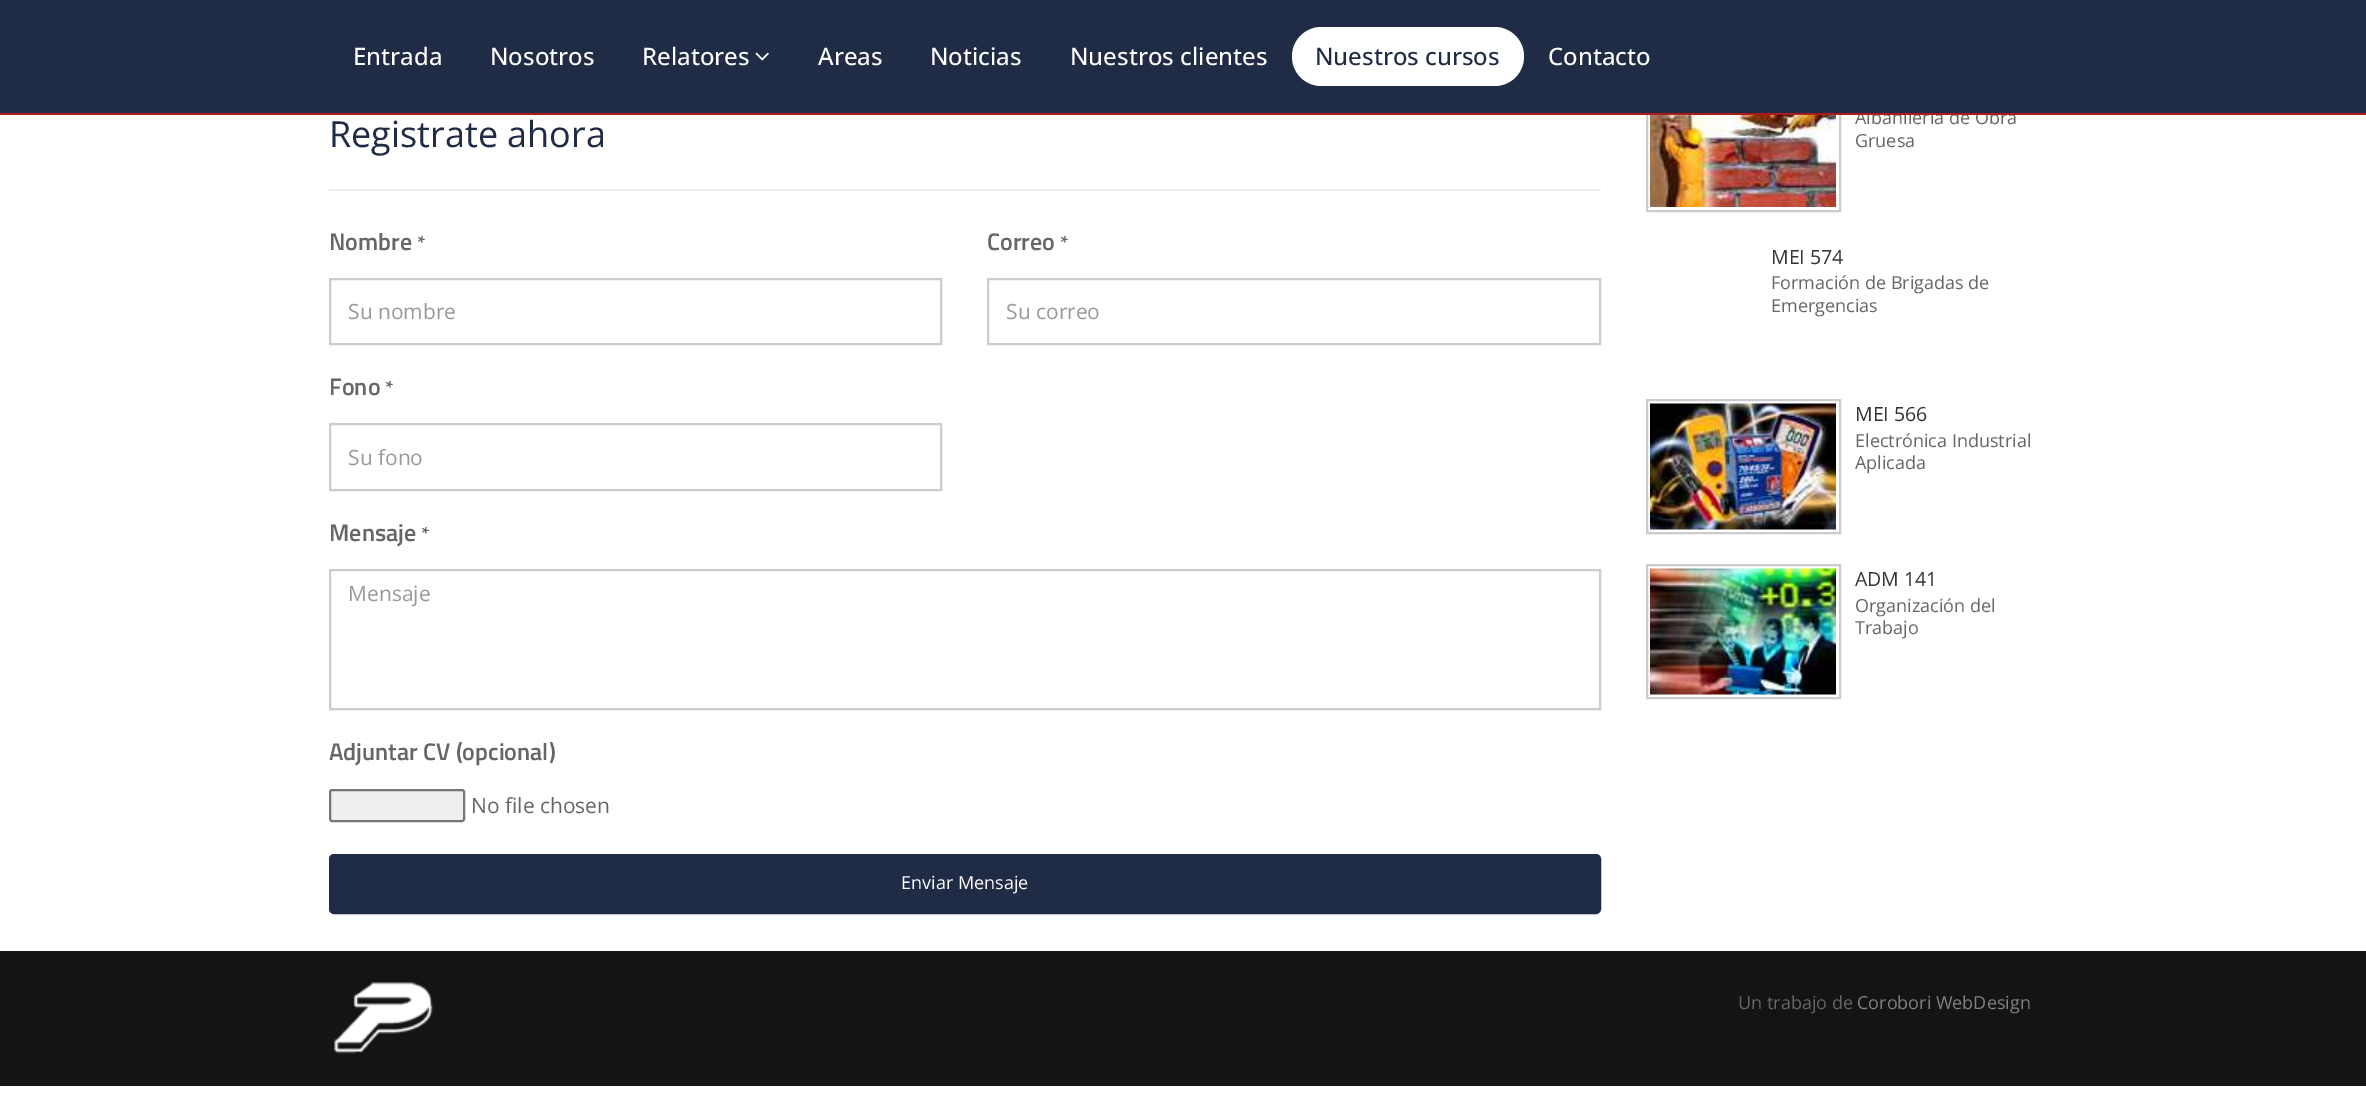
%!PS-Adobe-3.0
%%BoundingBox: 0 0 2366 1100
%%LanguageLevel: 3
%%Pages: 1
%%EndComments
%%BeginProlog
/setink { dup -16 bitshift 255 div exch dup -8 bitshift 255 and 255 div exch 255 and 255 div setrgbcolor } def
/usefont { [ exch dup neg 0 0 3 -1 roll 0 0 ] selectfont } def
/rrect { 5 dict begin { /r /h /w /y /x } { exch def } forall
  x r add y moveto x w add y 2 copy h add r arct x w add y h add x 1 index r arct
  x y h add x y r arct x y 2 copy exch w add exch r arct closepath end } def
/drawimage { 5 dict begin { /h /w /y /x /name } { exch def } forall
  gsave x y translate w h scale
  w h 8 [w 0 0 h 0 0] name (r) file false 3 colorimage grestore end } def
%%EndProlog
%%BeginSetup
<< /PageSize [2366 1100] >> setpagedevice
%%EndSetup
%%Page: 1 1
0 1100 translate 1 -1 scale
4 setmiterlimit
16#FFFFFF setink
0 0 2366 1100 rectfill
16#CCCCCC setink
2 setlinewidth
1647 78 193 133 rectstroke
/OpenSans-Regular 18 usefont
16#666666 setink
1855 124 moveto (Albañilería de Obra) show
16#202C45 setink
0 0 2366 113 rectfill
16#AE1A1A setink
0 113 2366 2 rectfill
/OpenSans-Medium 24 usefont
16#FFFFFF setink
[
    [(Entrada) 353 65]
    [(Nosotros) 490 65]
    [(Relatores) 642 65]
] { aload pop moveto show } forall
(img1.raw) 755 52 14 9 drawimage
[
    [(Areas) 818 65]
    [(Noticias) 930 65]
    [(Nuestros clientes) 1070 65]
] { aload pop moveto show } forall
1292 27 232 59 29.5 rrect fill
16#202C45 setink
1315 65 moveto (Nuestros cursos) show
16#FFFFFF setink
1548 65 moveto (Contacto) show
/OpenSans-Regular 36 usefont
16#202C45 setink
329 147 moveto (Registrate ahora) show
16#EEEEEE setink
329 189 1272 2 rectfill
/TitilliumWeb-SemiBold 24 usefont
16#666666 setink
329 250 moveto (Nombre) show
/TitilliumWeb-SemiBold 20 usefont
417 250 moveto (*) show
16#CCCCCC setink
330 279 611 65 rectstroke
/OpenSans-Regular 21 usefont
16#999999 setink
348 319 moveto (Su nombre) show
/TitilliumWeb-SemiBold 24 usefont
16#666666 setink
987 250 moveto (Correo) show
/TitilliumWeb-SemiBold 20 usefont
1060 250 moveto (*) show
16#CCCCCC setink
988 279 612 65 rectstroke
/OpenSans-Regular 21 usefont
16#999999 setink
1006 319 moveto (Su correo) show
/TitilliumWeb-SemiBold 24 usefont
16#666666 setink
329 395 moveto (Fono) show
/TitilliumWeb-SemiBold 20 usefont
385 395 moveto (*) show
16#CCCCCC setink
330 424 611 66 rectstroke
/OpenSans-Regular 21 usefont
16#999999 setink
348 465 moveto (Su fono) show
/TitilliumWeb-SemiBold 24 usefont
16#666666 setink
329 541 moveto (Mensaje) show
/TitilliumWeb-SemiBold 20 usefont
421 541 moveto (*) show
16#CCCCCC setink
330 570 1270 139 rectstroke
/OpenSans-Regular 21 usefont
16#999999 setink
348 601 moveto (Mensaje) show
/TitilliumWeb-SemiBold 24 usefont
16#666666 setink
329 760 moveto (Adjuntar CV \(opcional\)) show
16#EFEFEF setink
330 790 134 31 2 rrect gsave fill grestore
16#767676 setink
stroke
/OpenSans-Regular 21 usefont
16#666666 setink
471 813 moveto (No file chosen) show
16#202C45 setink
330 855 1270 58 4 rrect gsave fill grestore
stroke
/OpenSans-Regular 18 usefont
16#FFFFFF setink
901 889 moveto (Enviar Mensaje) show
(img2.raw) 1650 115 186 92 drawimage
16#666666 setink
1855 147 moveto (Gruesa) show
/OpenSans-Regular 19.5 usefont
16#333333 setink
1771 264 moveto (MEI 574) show
/OpenSans-Regular 18 usefont
16#666666 setink
1771 289 moveto (Formación de Brigadas de) show
1771 312 moveto (Emergencias) show
16#CCCCCC setink
1647 400 193 133 rectstroke
(img3.raw) 1650 403 186 127 drawimage
/OpenSans-Regular 19.5 usefont
16#333333 setink
1855 421 moveto (MEI 566) show
/OpenSans-Regular 18 usefont
16#666666 setink
1855 447 moveto (Electrónica Industrial) show
1855 469 moveto (Aplicada) show
16#CCCCCC setink
1647 565 193 133 rectstroke
(img4.raw) 1650 568 186 127 drawimage
/OpenSans-Regular 19.5 usefont
16#333333 setink
1855 586 moveto (ADM 141) show
/OpenSans-Regular 18 usefont
16#666666 setink
1855 612 moveto (Organización del) show
1855 634 moveto (Trabajo) show
16#141414 setink
0 951 2366 135 rectfill
(img5.raw) 334 982 99 72 drawimage
16#666666 setink
1738 1009 moveto (Un trabajo de) show
16#808080 setink
1857 1009 moveto (Corobori WebDesign) show
showpage
%%EOF
